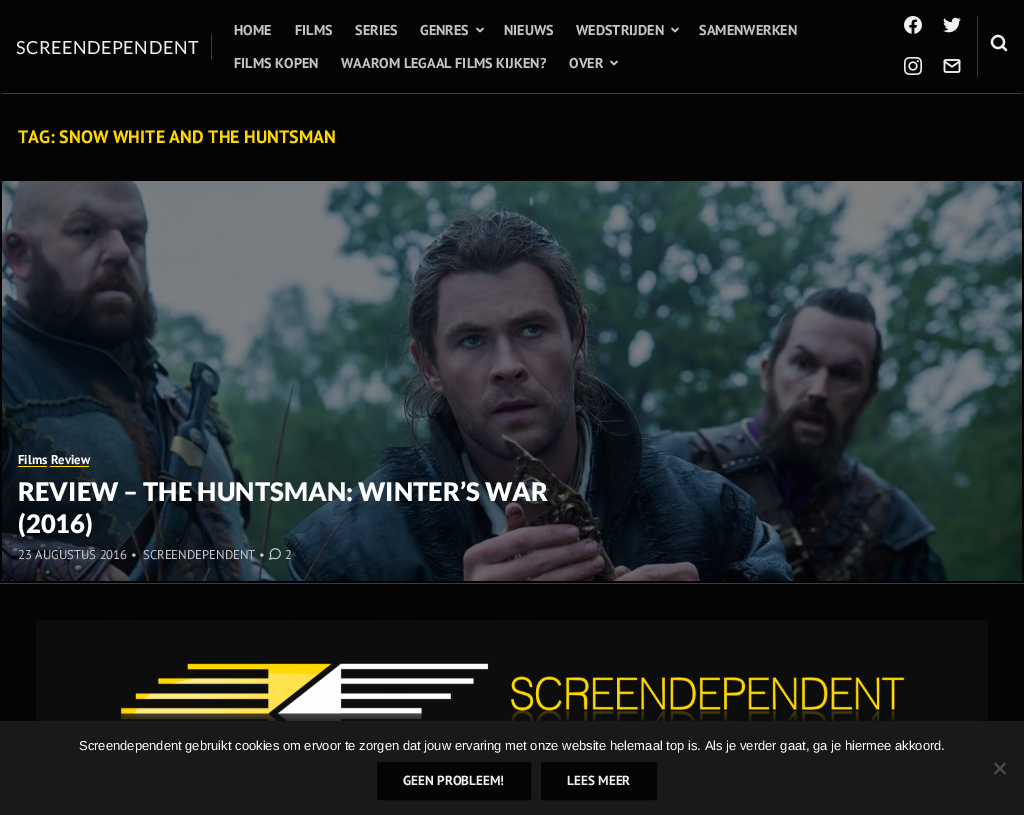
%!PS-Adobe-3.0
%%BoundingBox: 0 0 1024 815
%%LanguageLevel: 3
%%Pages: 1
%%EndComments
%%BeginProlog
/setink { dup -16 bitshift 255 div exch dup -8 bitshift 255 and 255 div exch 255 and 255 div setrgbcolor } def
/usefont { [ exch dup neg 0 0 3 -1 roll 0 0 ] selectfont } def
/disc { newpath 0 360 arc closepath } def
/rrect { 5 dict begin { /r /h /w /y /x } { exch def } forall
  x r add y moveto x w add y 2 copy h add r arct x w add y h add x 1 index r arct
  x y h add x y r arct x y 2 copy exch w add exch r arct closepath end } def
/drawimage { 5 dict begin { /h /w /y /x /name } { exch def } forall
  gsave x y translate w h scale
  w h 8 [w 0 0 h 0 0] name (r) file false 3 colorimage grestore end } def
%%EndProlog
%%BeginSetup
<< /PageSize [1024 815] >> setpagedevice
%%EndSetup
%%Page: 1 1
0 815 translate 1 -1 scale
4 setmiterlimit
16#040405 setink
0 0 1024 815 rectfill
16#3B3B45 setink
211 34 1 26 rectfill
/Lato-Regular 18 usefont
16#F1F1F3 setink
16 54 moveto 0.5 0 (SCREENDEPENDENT) ashow
/PTSans-Bold 14.25 usefont
16#C4C4CC setink
[
    [(HOME) 234 35]
    [(FILMS) 295 35]
    [(SERIES) 355 35]
    [(GENRES) 420 35]
] { aload pop moveto show } forall
1.5 setlinewidth
1 setlinecap
1 setlinejoin
477 28.5 moveto 480 31.5 lineto 483 28.5 lineto stroke
504 35 moveto (NIEUWS) show
576 35 moveto (WEDSTRIJDEN) show
672 28.5 moveto 675 31.5 lineto 678 28.5 lineto stroke
[
    [(SAMENWERKEN) 699 35]
    [(FILMS KOPEN) 234 68]
    [(WAAROM LEGAAL FILMS KIJKEN?) 341 68]
    [(OVER) 569 68]
] { aload pop moveto show } forall
611 61.5 moveto 614 64.5 lineto 617 61.5 lineto stroke
16#3B3B45 setink
977 16 1 61 rectfill
(img1.raw) 904 16 18 18 drawimage
(img2.raw) 943 17 18 16 drawimage
(img3.raw) 904 57 18 18 drawimage
(img4.raw) 943 59 18 14 drawimage
16#F1F1F3 setink
2.2 setlinewidth
0 setlinecap
0 setlinejoin
998 42 6 disc stroke
1 setlinecap
1 setlinejoin
1006 50 moveto 1002.5 46.5 lineto stroke
16#3B3B45 setink
2 93 1020 1 rectfill
/PTSans-Bold 18 usefont
16#FFD800 setink
18 143 moveto (TAG: SNOW WHITE AND THE HUNTSMAN) show
(img5.raw) 2 181 1020 400 drawimage
/PTSans-Bold 12.75 usefont
16#FFFFFF setink
18 464 moveto (Films Review) show
16#FFD800 setink
18 466 29 1 rectfill
50 466 39 1 rectfill
/Lato-Black 25.6 usefont
16#FFFFFF setink
18 501 moveto (REVIEW – THE HUNTSMAN: WINTER’S WAR) show
18 533 moveto (\(2016\)) show
/PTSans-Regular 12.75 usefont
16#C4C4CC setink
18 559 moveto (23 AUGUSTUS 2016) show
16#C1C2C3 setink
131 559 moveto (•) show
16#C4C4CC setink
143 559 moveto (SCREENDEPENDENT) show
16#C7CAC9 setink
259 559 moveto (•) show
(img6.raw) 269 548 12 12 drawimage
285 559 moveto (2) show
16#3B3B45 setink
0 583 1024 1 rectfill
(img7.raw) 36 620 952 101 drawimage
16#191919 setink
0 721 1024 94 rectfill
/LiberationSans-Regular 13 usefont
16#FFFFFF setink
79 750 moveto (Screendependent gebruikt cookies om ervoor te zorgen dat jouw ervaring met onze website helemaal top is. Als je verder gaat, ga je hiermee akkoord.) show
16#4D4D4D setink
1004.5 762.5 moveto 1006 764 lineto 995.5 774.5 lineto 994 773 lineto closepath fill
994 764 moveto 995.5 762.5 lineto 1006 773 lineto 1004.5 774.5 lineto closepath fill
16#040405 setink
377.5 762.5 153 37 1.5 rrect gsave fill grestore
1 setlinewidth
0 setlinecap
0 setlinejoin
stroke
/PTSans-Bold 13.25 usefont
16#F1F1F3 setink
403 785 moveto (GEEN PROBLEEM!) show
16#040405 setink
541.5 762.5 115 37 1.5 rrect gsave fill grestore
stroke
16#F1F1F3 setink
567 785 moveto (LEES MEER) show
showpage
%%EOF
